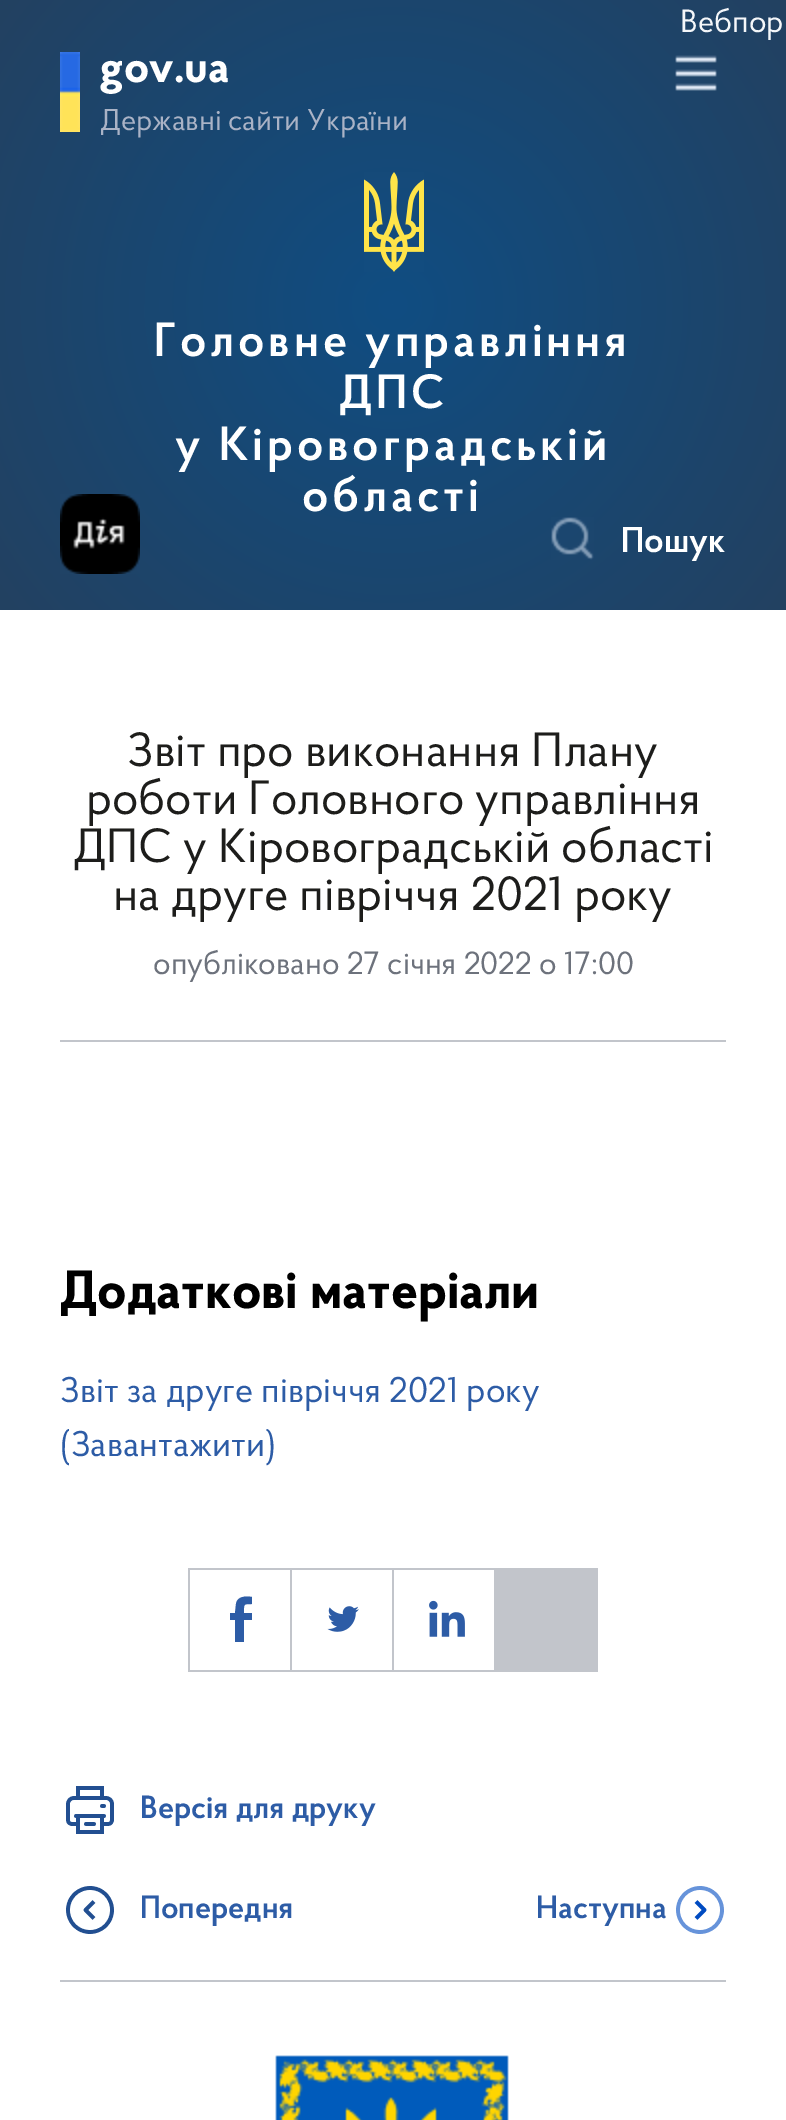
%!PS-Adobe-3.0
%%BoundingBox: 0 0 786 2120
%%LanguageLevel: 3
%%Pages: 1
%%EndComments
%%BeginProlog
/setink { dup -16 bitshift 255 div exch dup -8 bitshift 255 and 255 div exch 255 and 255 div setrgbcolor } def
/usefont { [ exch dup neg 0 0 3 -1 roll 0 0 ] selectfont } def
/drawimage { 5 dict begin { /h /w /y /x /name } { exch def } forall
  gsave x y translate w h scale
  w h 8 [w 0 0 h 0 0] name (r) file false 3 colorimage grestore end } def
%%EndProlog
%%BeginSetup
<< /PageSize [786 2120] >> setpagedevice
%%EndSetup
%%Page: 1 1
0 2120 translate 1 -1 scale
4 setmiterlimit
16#FFFFFF setink
0 0 786 2120 rectfill
gsave 0 0 moveto 786 0 lineto 786 610 lineto 0 610 lineto closepath clip newpath 393 305 translate 497 497 scale
<< /ShadingType 3 /ColorSpace /DeviceRGB /Coords [0 0 0 0 0 1] /Extend [true true] /Function << /FunctionType 2 /Domain [0 1] /C0 [0.063 0.302 0.51] /C1 [0.137 0.255 0.38] /N 1 >> >> shfill grestore
/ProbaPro-Regular 32 usefont
16#F5F7FA setink
680 32 moveto (Вебпор) show
(img1.raw) 60 52 20 80 drawimage
/ProbaPro-Bold 46 usefont
16#FFFFFF setink
100 82 moveto (gov.ua) show
/ProbaPro-Regular 30 usefont
16#AAB3C6 setink
100 130 moveto (Державні сайти України) show
(img2.raw) 675 55 42 36 drawimage
(img3.raw) 364 172 60 100 drawimage
/ProbaPro-SemiBold 48 usefont
16#FFFFFF setink
154 356 moveto 3.8 0 (Головне управління) ashow
339 408 moveto 3.8 0 (ДПС) ashow
175 460 moveto 3.8 0 (у Кіровоградській) ashow
302 511 moveto 3.8 0 (області) ashow
(img4.raw) 60 494 80 80 drawimage
(img5.raw) 551 517 43 43 drawimage
/ProbaPro-SemiBold 35.8 usefont
621 552 moveto (Пошук) show
16#C2C5CB setink
60 1040 666 2 rectfill
/ProbaPro-Regular 48 usefont
16#1D1D1B setink
[
    [(Звіт про виконання Плану) 127 766]
    [(роботи Головного управління) 86 814]
    [(ДПС у Кіровоградській області) 73 862]
    [(на друге півріччя 2021 року) 113 910]
] { aload pop moveto show } forall
/ProbaPro-Regular 32 usefont
16#6D727C setink
153 974 moveto (опубліковано 27 січня 2022 о 17:00) show
/ProbaPro-Bold 53.75 usefont
16#000000 setink
60 1308 moveto (Додаткові матеріали) show
/ProbaPro-Regular 35.8 usefont
16#2D5CA6 setink
60 1402 moveto (Звіт за друге півріччя 2021 року) show
60 1456 moveto (\(Завантажити\)) show
16#C2C5CB setink
188 1568 410 104 rectfill
16#FFFFFF setink
190 1570 100 100 rectfill
16#2D5CA6 setink
235 1642 moveto 235 1620 lineto 230 1620 lineto 230 1613 lineto 235 1613 lineto 236 1604 lineto 237 1596 246 1596 252 1597 curveto 252 1604 lineto 243 1604 244 1604 244 1613 curveto 252 1613 lineto 252 1620 lineto 244 1620 lineto 244 1642 lineto closepath fill
16#FFFFFF setink
292 1570 100 100 rectfill
(img6.raw) 327 1606 32 26 drawimage
394 1570 100 100 rectfill
(img7.raw) 429 1600 36 37 drawimage
(img8.raw) 66 1786 48 48 drawimage
/ProbaPro-SemiBold 32 usefont
16#2D5CA6 setink
140 1818 moveto (Версія для друку) show
(img9.raw) 66 1886 48 48 drawimage
140 1918 moveto (Попередня) show
536 1918 moveto (Наступна) show
(img10.raw) 676 1886 48 48 drawimage
16#C2C5CB setink
60 1980 666 2 rectfill
(img11.raw) 275 2055 234 65 drawimage
showpage
%%EOF
